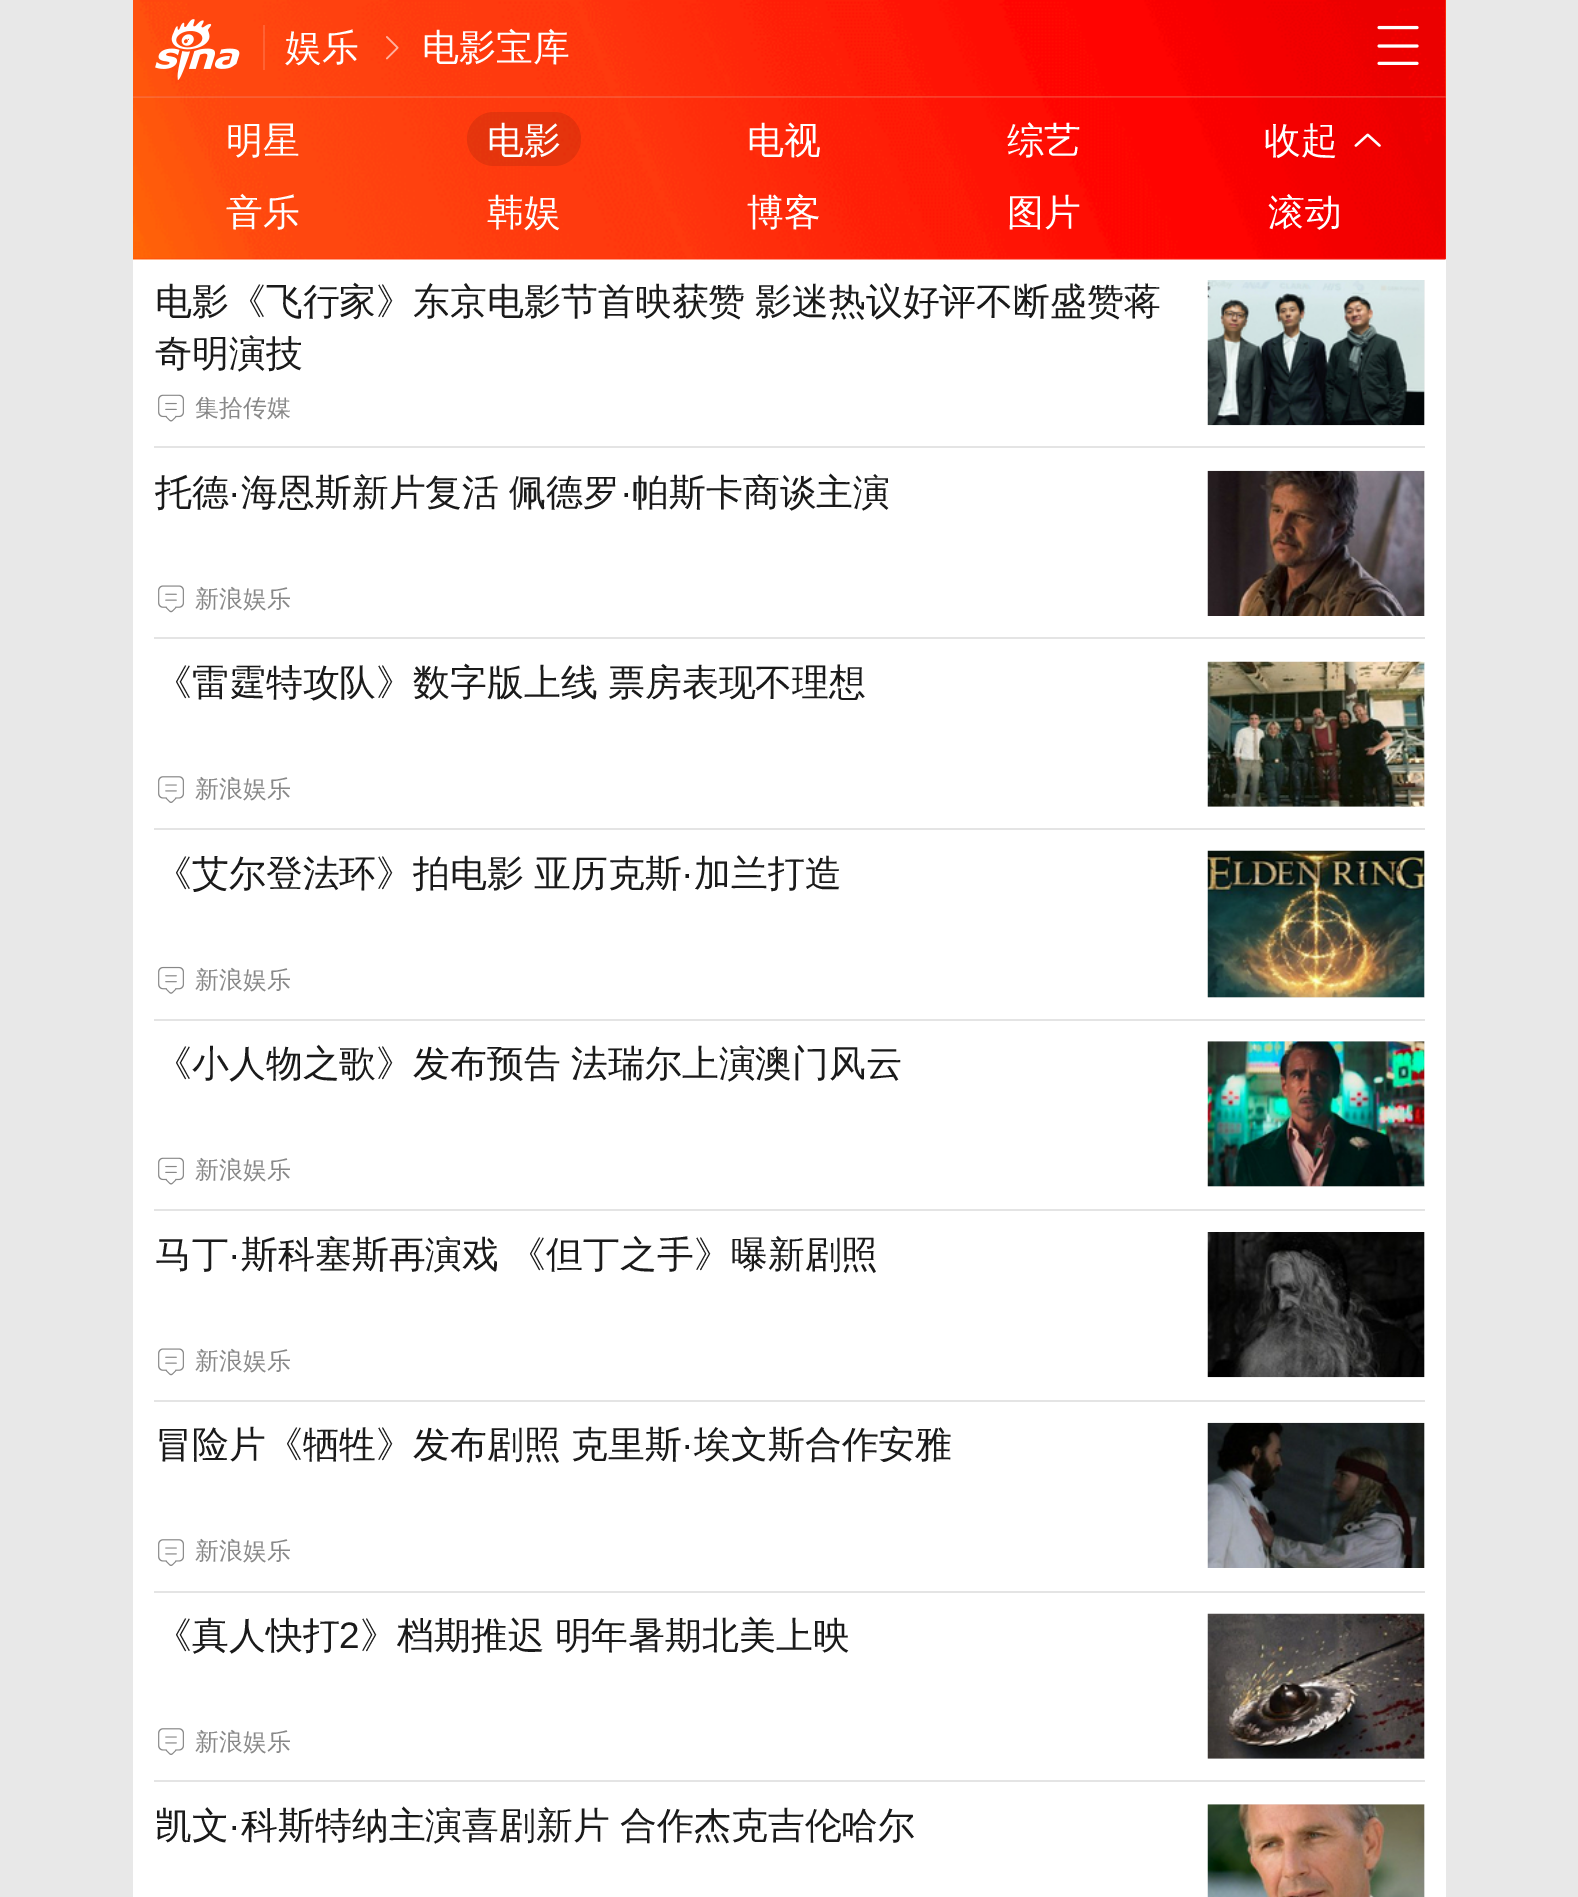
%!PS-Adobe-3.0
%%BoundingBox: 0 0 1578 1897
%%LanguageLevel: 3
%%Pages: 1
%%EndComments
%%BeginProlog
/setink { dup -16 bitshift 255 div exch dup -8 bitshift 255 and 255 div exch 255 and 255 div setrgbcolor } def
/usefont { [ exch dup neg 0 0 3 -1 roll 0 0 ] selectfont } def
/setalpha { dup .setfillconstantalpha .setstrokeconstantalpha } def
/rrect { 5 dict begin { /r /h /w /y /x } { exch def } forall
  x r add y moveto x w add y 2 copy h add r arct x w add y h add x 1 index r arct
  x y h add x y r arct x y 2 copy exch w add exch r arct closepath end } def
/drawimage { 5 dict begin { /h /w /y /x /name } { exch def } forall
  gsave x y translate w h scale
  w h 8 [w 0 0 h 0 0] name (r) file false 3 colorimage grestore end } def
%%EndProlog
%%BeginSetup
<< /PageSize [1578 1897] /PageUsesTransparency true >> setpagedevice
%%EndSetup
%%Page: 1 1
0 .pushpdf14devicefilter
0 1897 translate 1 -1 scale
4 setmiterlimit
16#E8E8E8 setink
0 0 1578 1897 rectfill
16#FE350E setink
1445 0 1 96 rectfill
(img1.raw) 133 0 1313 96 drawimage
(img2.raw) 155 19 85 61 drawimage
0.15 setalpha
16#FFFFFF setink
263 25 2 45 rectfill
/WenQuanYiZenHei-Medium 36.9 usefont
1 setalpha
285 60 moveto (娱乐) show
(img3.raw) 386 36 13 24 drawimage
422 60 moveto (电影宝库) show
(img4.raw) 1377 25 42 40 drawimage
16#FE350E setink
133 96 1313 163 rectfill
16#FFFFFF setink
133 259 1313 1638 rectfill
(img5.raw) 133 96 1313 164 drawimage
0.15 setalpha
16#E7E7E7 setink
133 96 1313 2 rectfill
1 setalpha
16#FFFFFF setink
226 153 moveto (明星) show
0.1 setalpha
16#000000 setink
467 112 114 54 27 rrect fill
1 setalpha
16#FFFFFF setink
[
    [(电影) 487 153]
    [(电视) 747 153]
    [(综艺) 1007 153]
    [(收起) 1264 153]
] { aload pop moveto show } forall
(img6.raw) 1354 133 27 14 drawimage
[
    [(音乐) 226 225]
    [(韩娱) 487 225]
    [(博客) 747 225]
    [(图片) 1007 225]
    [(滚动) 1268 225]
] { aload pop moveto show } forall
16#E4E4E4 setink
154 446 1271 2 rectfill
16#1A1A1A setink
[
    [(电影《飞行家》东京电影节首映获赞) 155 314]
    [(影迷热议好评不断盛赞蒋) 755 314]
    [(奇明演技) 155 366]
] { aload pop moveto show } forall
(img7.raw) 158 394 26 28 drawimage
/WenQuanYiZenHei-Medium 24 usefont
16#888888 setink
195 416 moveto (集拾传媒) show
16#F2F2F2 setink
1424 280 1 145 rectfill
(img8.raw) 1207 280 218 146 drawimage
16#E4E4E4 setink
154 637 1271 2 rectfill
/WenQuanYiZenHei-Medium 36.9 usefont
16#1A1A1A setink
155 505 moveto (托德) show
/LiberationSans-Regular 36.9 usefont
228 505 moveto (·) show
/WenQuanYiZenHei-Medium 36.9 usefont
241 505 moveto -1 0 32 (海恩斯新片复活 佩德罗) widthshow
/LiberationSans-Regular 36.9 usefont
620 505 moveto (·) show
/WenQuanYiZenHei-Medium 36.9 usefont
632 505 moveto (帕斯卡商谈主演) show
(img9.raw) 158 585 26 28 drawimage
/WenQuanYiZenHei-Medium 24 usefont
16#888888 setink
195 607 moveto (新浪娱乐) show
16#F2F2F2 setink
1424 471 1 145 rectfill
(img10.raw) 1207 470 218 146 drawimage
16#E4E4E4 setink
154 828 1271 2 rectfill
/WenQuanYiZenHei-Medium 36.9 usefont
16#1A1A1A setink
155 695 moveto -1 0 32 (《雷霆特攻队》数字版上线 票房表现不理想) widthshow
(img11.raw) 158 776 26 27 drawimage
/WenQuanYiZenHei-Medium 24 usefont
16#888888 setink
195 797 moveto (新浪娱乐) show
16#F2F2F2 setink
1208 662 217 145 rectfill
(img12.raw) 1207 661 218 146 drawimage
16#E4E4E4 setink
154 1019 1271 2 rectfill
/WenQuanYiZenHei-Medium 36.9 usefont
16#1A1A1A setink
155 886 moveto -1 0 32 (《艾尔登法环》拍电影 亚历克斯) widthshow
/LiberationSans-Regular 36.9 usefont
681 886 moveto (·) show
/WenQuanYiZenHei-Medium 36.9 usefont
694 886 moveto (加兰打造) show
(img13.raw) 158 966 26 28 drawimage
/WenQuanYiZenHei-Medium 24 usefont
16#888888 setink
195 988 moveto (新浪娱乐) show
16#F2F2F2 setink
1208 851 217 147 rectfill
(img14.raw) 1207 850 218 148 drawimage
16#E4E4E4 setink
154 1209 1271 2 rectfill
/WenQuanYiZenHei-Medium 36.9 usefont
16#1A1A1A setink
155 1076 moveto -1 0 32 (《小人物之歌》发布预告 法瑞尔上演澳门风云) widthshow
(img7.raw) 158 1157 26 28 drawimage
/WenQuanYiZenHei-Medium 24 usefont
16#888888 setink
195 1178 moveto (新浪娱乐) show
16#F2F2F2 setink
1208 1041 217 146 rectfill
(img15.raw) 1207 1041 218 146 drawimage
16#E4E4E4 setink
154 1400 1271 2 rectfill
/WenQuanYiZenHei-Medium 36.9 usefont
16#1A1A1A setink
155 1267 moveto (马丁) show
/LiberationSans-Regular 36.9 usefont
228 1267 moveto (·) show
/WenQuanYiZenHei-Medium 36.9 usefont
241 1267 moveto -1 0 32 (斯科塞斯再演戏 《但丁之手》曝新剧照) widthshow
(img9.raw) 158 1348 26 28 drawimage
/WenQuanYiZenHei-Medium 24 usefont
16#888888 setink
195 1369 moveto (新浪娱乐) show
16#F2F2F2 setink
1424 1232 1 145 rectfill
(img16.raw) 1207 1232 218 146 drawimage
16#E4E4E4 setink
154 1591 1271 2 rectfill
/WenQuanYiZenHei-Medium 36.9 usefont
16#1A1A1A setink
155 1457 moveto -1 0 32 (冒险片《牺牲》发布剧照 克里斯) widthshow
/LiberationSans-Regular 36.9 usefont
681 1457 moveto (·) show
/WenQuanYiZenHei-Medium 36.9 usefont
694 1457 moveto (埃文斯合作安雅) show
(img11.raw) 158 1539 26 27 drawimage
/WenQuanYiZenHei-Medium 24 usefont
16#888888 setink
195 1559 moveto (新浪娱乐) show
16#F2F2F2 setink
1424 1423 1 145 rectfill
(img17.raw) 1207 1422 218 146 drawimage
16#E4E4E4 setink
154 1780 1271 2 rectfill
/WenQuanYiZenHei-Medium 36.9 usefont
16#1A1A1A setink
155 1648 moveto (《真人快打) show
/LiberationSans-Regular 36.9 usefont
339 1648 moveto (2) show
/WenQuanYiZenHei-Medium 36.9 usefont
360 1648 moveto -1 0 32 (》档期推迟 明年暑期北美上映) widthshow
(img11.raw) 158 1728 26 27 drawimage
/WenQuanYiZenHei-Medium 24 usefont
16#888888 setink
195 1750 moveto (新浪娱乐) show
16#F2F2F2 setink
1208 1614 217 145 rectfill
(img18.raw) 1207 1613 218 146 drawimage
/WenQuanYiZenHei-Medium 36.9 usefont
16#1A1A1A setink
155 1838 moveto (凯文) show
/LiberationSans-Regular 36.9 usefont
228 1838 moveto (·) show
/WenQuanYiZenHei-Medium 36.9 usefont
241 1838 moveto -1 0 32 (科斯特纳主演喜剧新片 合作杰克吉伦哈尔) widthshow
16#F2F2F2 setink
1208 1804 217 93 rectfill
(img19.raw) 1207 1804 218 93 drawimage
.poppdf14devicefilter showpage
%%EOF
